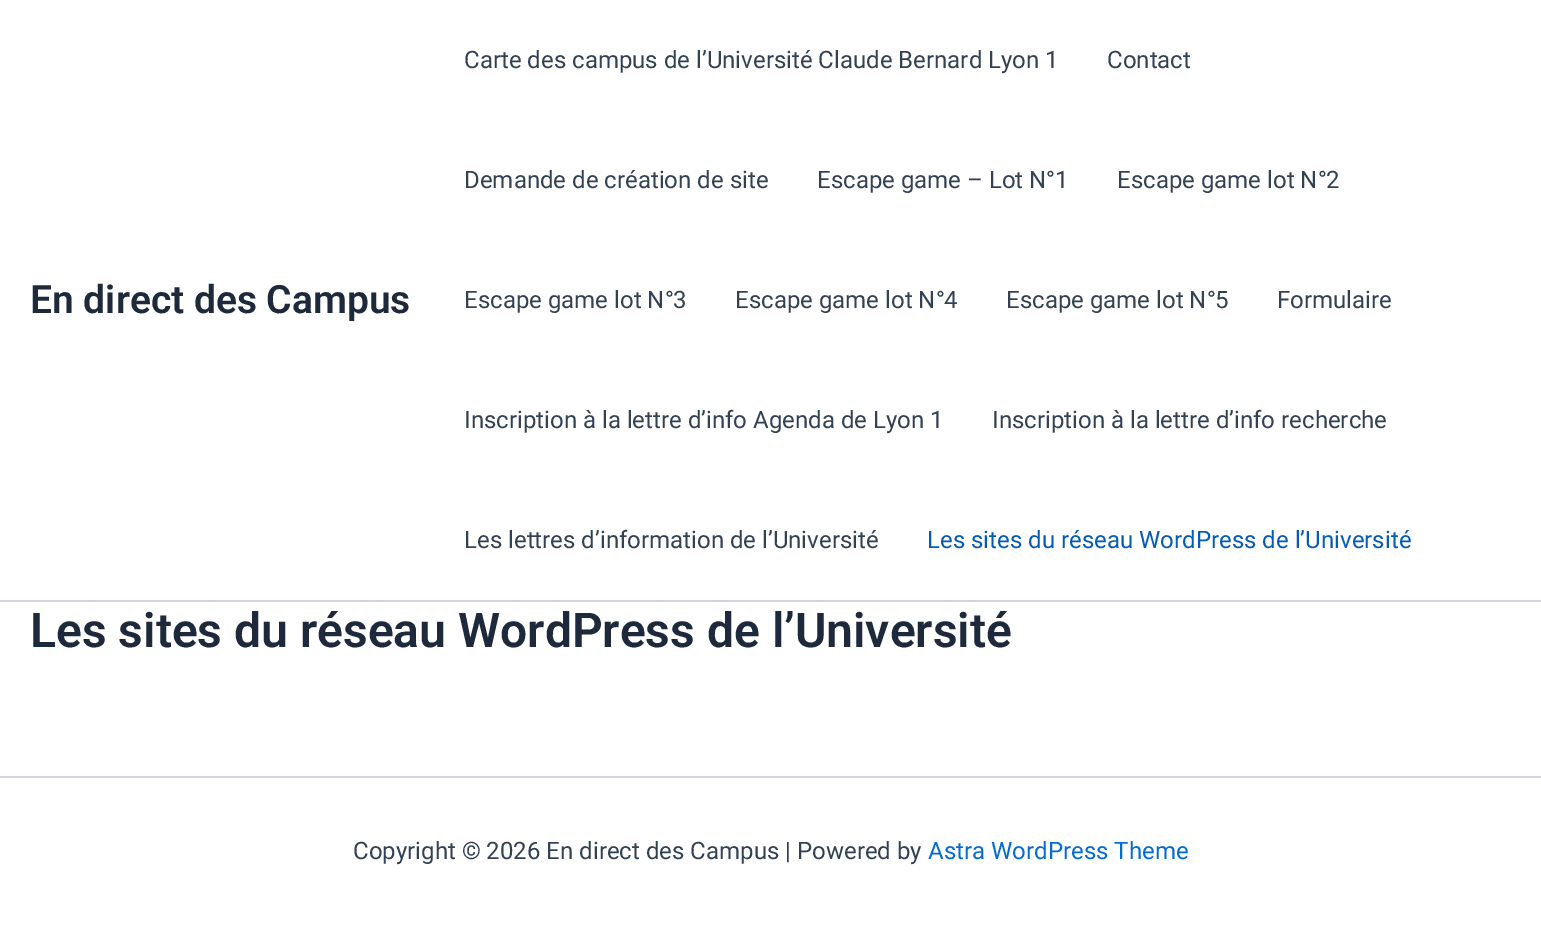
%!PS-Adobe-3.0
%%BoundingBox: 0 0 1541 926
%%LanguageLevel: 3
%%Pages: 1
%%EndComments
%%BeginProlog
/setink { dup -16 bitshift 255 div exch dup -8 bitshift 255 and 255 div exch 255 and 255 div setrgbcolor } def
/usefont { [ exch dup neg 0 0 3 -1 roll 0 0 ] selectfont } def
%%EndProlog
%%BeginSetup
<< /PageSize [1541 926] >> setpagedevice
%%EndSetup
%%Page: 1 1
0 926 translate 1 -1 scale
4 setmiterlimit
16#FFFFFF setink
0 0 1541 926 rectfill
16#D1D5DB setink
0 600 1541 2 rectfill
/Roboto-SemiBold 39 usefont
16#1E293B setink
30 313 moveto (En direct des Campus) show
/Roboto-Regular 24 usefont
16#334155 setink
[
    [(Carte des campus de l’Université Claude Bernard Lyon 1) 464 68]
    [(Contact) 1107 68]
    [(Demande de création de site) 464 188]
    [(Escape game – Lot N°1) 817 188]
    [(Escape game lot N°2) 1117 188]
    [(Escape game lot N°3) 464 308]
    [(Escape game lot N°4) 735 308]
    [(Escape game lot N°5) 1006 308]
    [(Formulaire) 1277 308]
    [(Inscription à la lettre d’info Agenda de Lyon 1) 464 428]
    [(Inscription à la lettre d’info recherche) 992 428]
    [(Les lettres d’information de l’Université) 464 548]
] { aload pop moveto show } forall
16#045CB4 setink
927 548 moveto (Les sites du réseau WordPress de l’Université) show
/Roboto-SemiBold 48 usefont
16#1E293B setink
30 647 moveto (Les sites du réseau WordPress de l’Université) show
16#D1D5DB setink
0 776 1541 2 rectfill
/Roboto-Regular 24 usefont
16#334155 setink
353 859 moveto (Copyright © 2026 En direct des Campus | Powered by) show
16#046BD2 setink
928 859 moveto (Astra WordPress Theme) show
showpage
%%EOF
